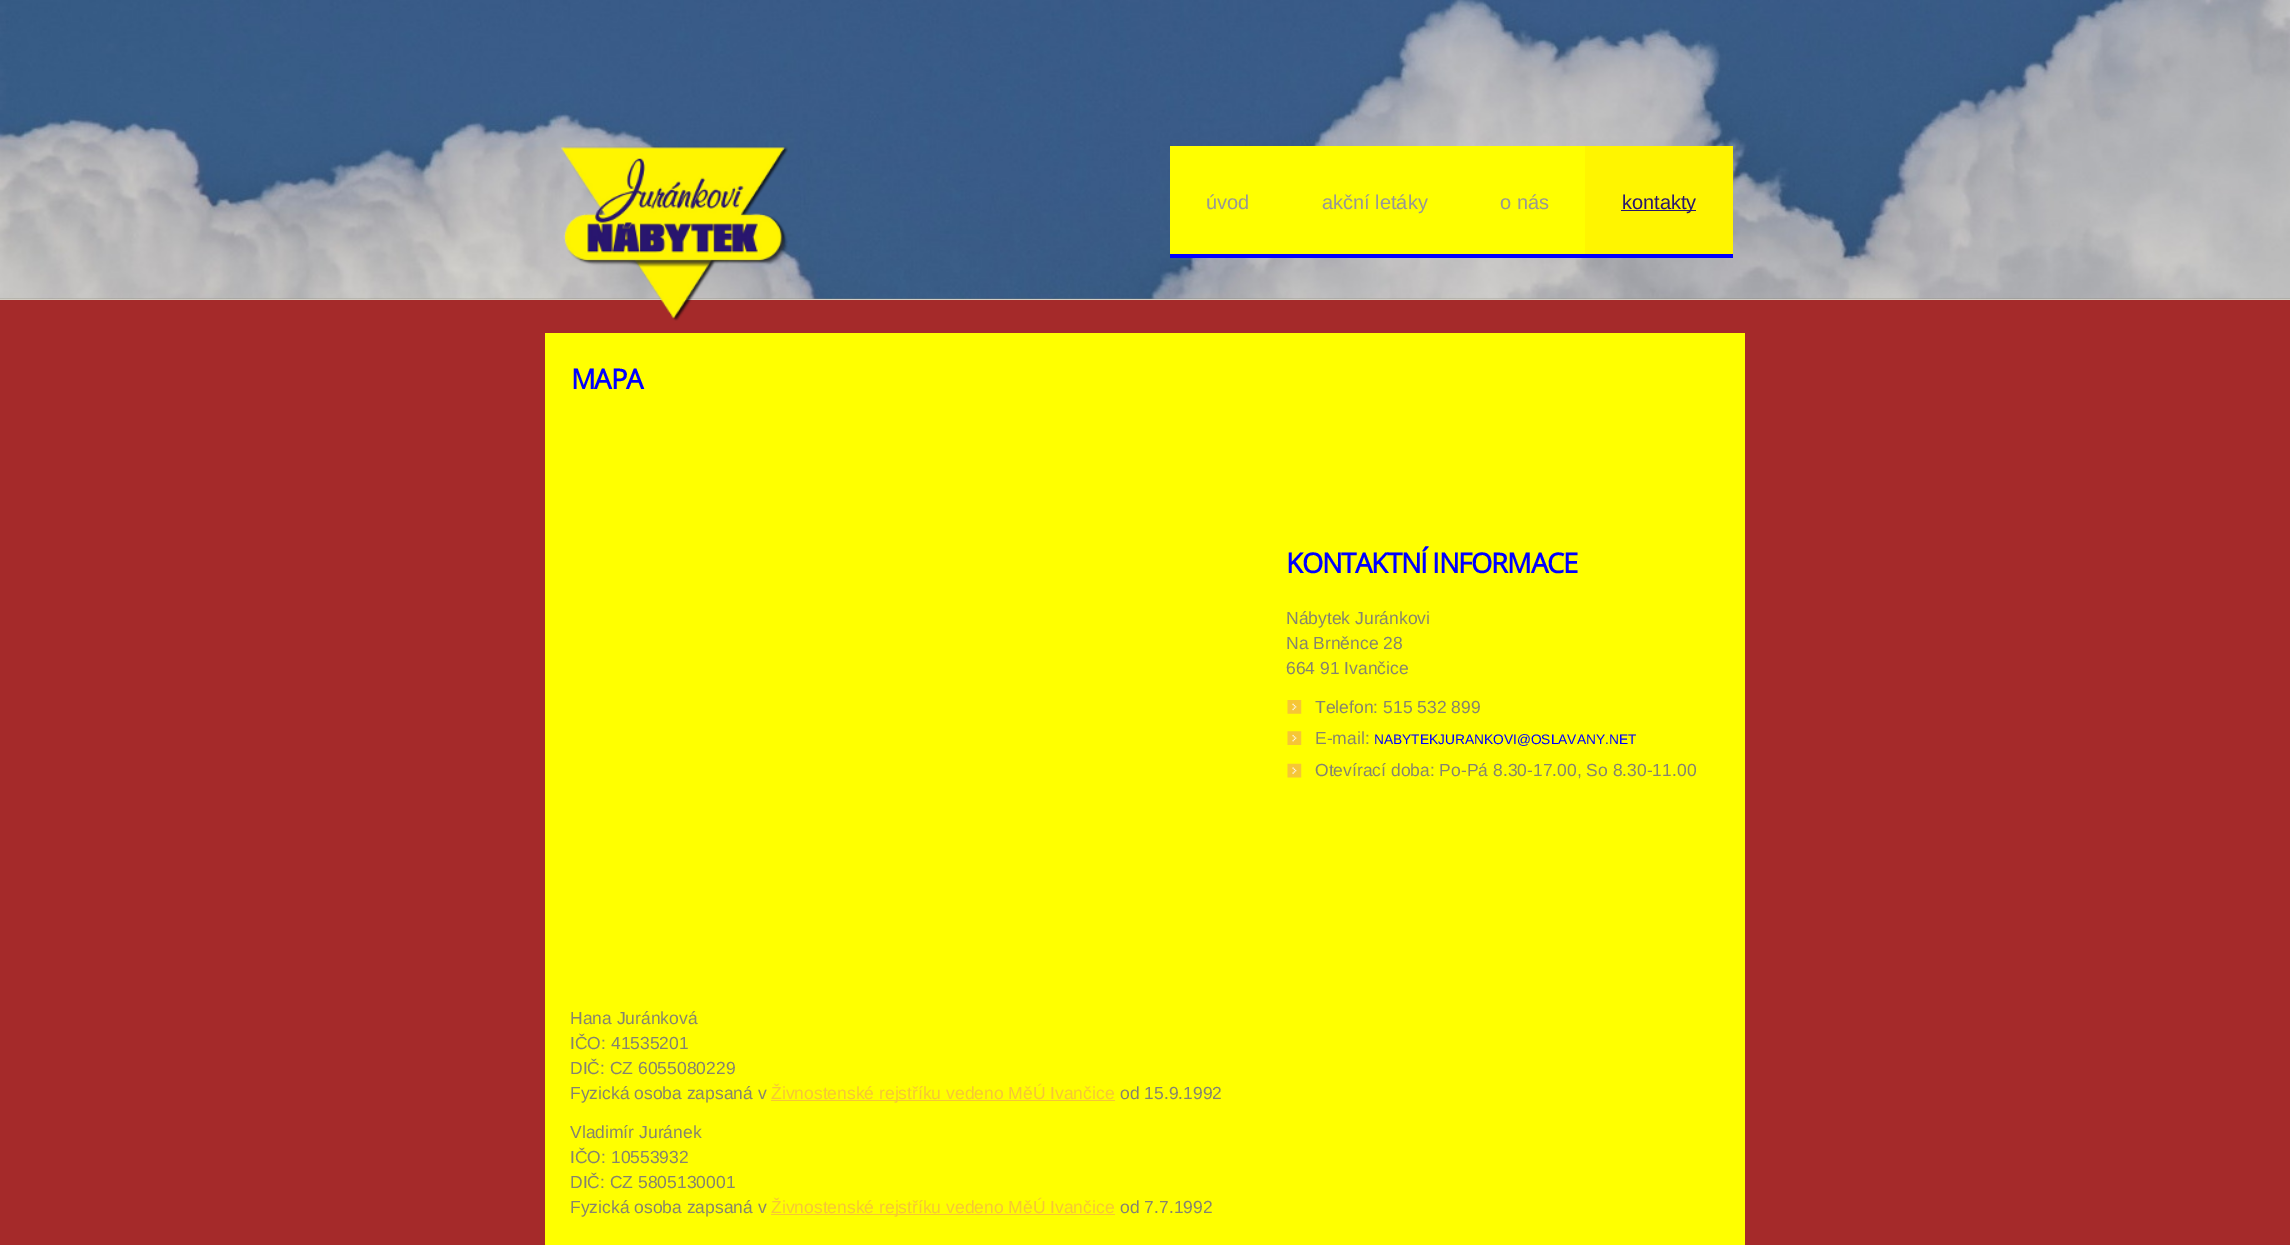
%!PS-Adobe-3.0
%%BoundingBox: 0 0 2290 1245
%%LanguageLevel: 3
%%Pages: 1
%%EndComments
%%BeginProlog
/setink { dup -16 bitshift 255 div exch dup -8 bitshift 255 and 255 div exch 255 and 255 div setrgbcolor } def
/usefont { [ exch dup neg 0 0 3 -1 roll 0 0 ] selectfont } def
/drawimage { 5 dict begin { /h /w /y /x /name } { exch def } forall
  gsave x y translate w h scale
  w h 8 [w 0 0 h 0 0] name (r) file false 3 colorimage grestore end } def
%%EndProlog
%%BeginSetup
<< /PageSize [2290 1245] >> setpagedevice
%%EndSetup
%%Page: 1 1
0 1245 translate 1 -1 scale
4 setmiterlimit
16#FFFFFF setink
0 0 2290 1245 rectfill
(img1.raw) 0 298 2290 1 drawimage
(img2.raw) 0 0 2290 299 drawimage
16#A52A2A setink
0 300 2290 945 rectfill
16#D1CDC3 setink
0 299 2290 1 rectfill
(img3.raw) 561 146 227 175 drawimage
16#FFFF00 setink
1170 146 415 108 rectfill
16#0000FF setink
1170 254 563 4 rectfill
/LiberationSans-Regular 20 usefont
16#979797 setink
[
    [(úvod) 1206 209]
    [(akční letáky) 1322 209]
    [(o nás) 1500 209]
] { aload pop moveto show } forall
16#FFF500 setink
1585 146 148 108 rectfill
16#29166F setink
1621 210 75 1 rectfill
1622 209 moveto (kontakty) show
16#FFFF00 setink
545 333 1200 912 rectfill
/OpenSans-Bold 27.5 usefont
16#0000FF setink
571 389 moveto -1.25 0 (MAPA) ashow
1286 573 moveto -1.25 0 (KONTAKTNÍ INFORMACE) ashow
/LiberationSans-Regular 17.5 usefont
16#858370 setink
[
    [(Nábytek Juránkovi) 1286 624]
    [(Na Brněnce 28) 1286 649]
    [(664 91 Ivančice) 1286 674]
] { aload pop moveto show } forall
(img4.raw) 1287 700 15 14 drawimage
1315 713 moveto (Telefon: 515 532 899) show
(img5.raw) 1287 731 15 14 drawimage
1315 744 moveto (E-mail:) show
/LiberationSans-Regular 13.75 usefont
16#0000FF setink
1374 744 moveto (NABYTEKJURANKOVI@OSLAVANY.NET) show
(img6.raw) 1287 763 15 15 drawimage
/LiberationSans-Regular 17.5 usefont
16#858370 setink
[
    [(Otevírací doba: Po-Pá 8.30-17.00, So 8.30-11.00) 1315 776]
    [(Hana Juránková) 570 1024]
    [(IČO: 41535201) 570 1049]
    [(DIČ: CZ 6055080229) 570 1074]
    [(Fyzická osoba zapsaná v) 570 1099]
] { aload pop moveto show } forall
16#F6C636 setink
771 1100 344 1 rectfill
771 1099 moveto (Živnostenské rejstříku vedeno MěÚ Ivančice) show
16#858370 setink
[
    [(od 15.9.1992) 1120 1099]
    [(Vladimír Juránek) 570 1138]
    [(IČO: 10553932) 570 1163]
    [(DIČ: CZ 5805130001) 570 1188]
    [(Fyzická osoba zapsaná v) 570 1213]
] { aload pop moveto show } forall
16#F6C636 setink
771 1214 344 1 rectfill
771 1213 moveto (Živnostenské rejstříku vedeno MěÚ Ivančice) show
16#858370 setink
1120 1213 moveto (od 7.7.1992) show
showpage
%%EOF
